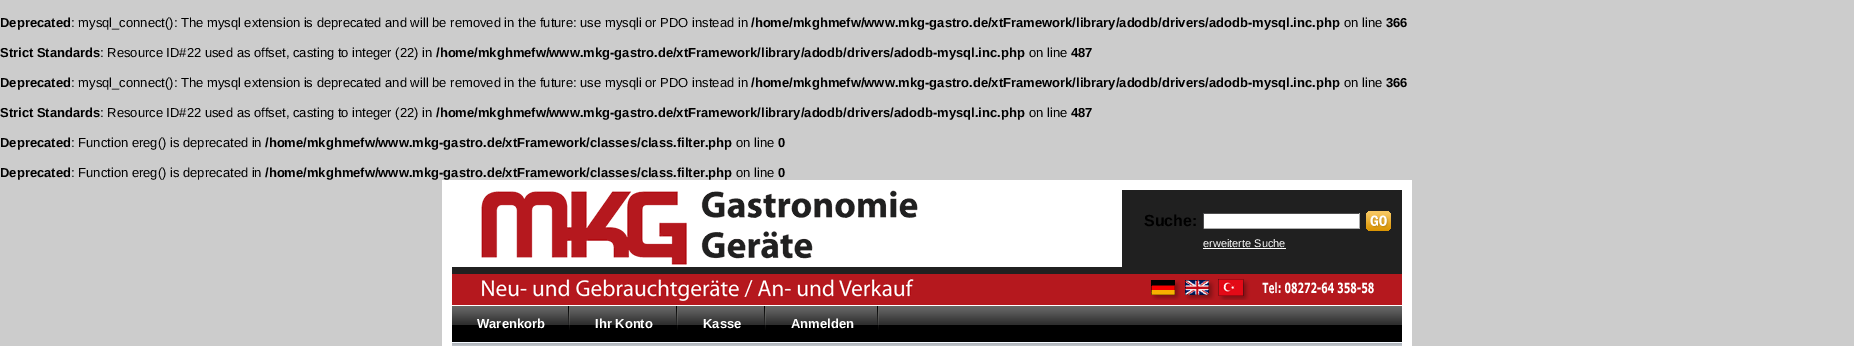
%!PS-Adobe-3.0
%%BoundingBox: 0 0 1854 346
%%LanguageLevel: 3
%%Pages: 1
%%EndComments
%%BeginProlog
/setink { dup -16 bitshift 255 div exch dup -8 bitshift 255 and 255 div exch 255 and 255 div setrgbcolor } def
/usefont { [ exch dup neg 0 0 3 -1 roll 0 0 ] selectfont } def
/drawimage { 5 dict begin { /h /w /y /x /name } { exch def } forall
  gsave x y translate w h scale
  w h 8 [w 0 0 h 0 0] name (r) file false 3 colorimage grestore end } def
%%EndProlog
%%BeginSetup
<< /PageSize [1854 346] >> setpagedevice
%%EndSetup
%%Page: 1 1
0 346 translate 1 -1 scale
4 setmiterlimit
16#CCCCCC setink
0 0 1854 346 rectfill
/LiberationSans-Bold 13 usefont
16#000000 setink
0 27 moveto (Deprecated) show
/LiberationSans-Regular 13 usefont
71 27 moveto (: mysql_connect\(\): The mysql extension is deprecated and will be removed in the future: use mysqli or PDO instead in) show
/LiberationSans-Bold 13 usefont
751 27 moveto (/home/mkghmefw/www.mkg-gastro.de/xtFramework/library/adodb/drivers/adodb-mysql.inc.php) show
/LiberationSans-Regular 13 usefont
1344 27 moveto (on line) show
/LiberationSans-Bold 13 usefont
1386 27 moveto (366) show
0 57 moveto (Strict Standards) show
/LiberationSans-Regular 13 usefont
100 57 moveto (: Resource ID#22 used as offset, casting to integer \(22\) in) show
/LiberationSans-Bold 13 usefont
436 57 moveto (/home/mkghmefw/www.mkg-gastro.de/xtFramework/library/adodb/drivers/adodb-mysql.inc.php) show
/LiberationSans-Regular 13 usefont
1029 57 moveto (on line) show
/LiberationSans-Bold 13 usefont
1071 57 moveto (487) show
0 87 moveto (Deprecated) show
/LiberationSans-Regular 13 usefont
71 87 moveto (: mysql_connect\(\): The mysql extension is deprecated and will be removed in the future: use mysqli or PDO instead in) show
/LiberationSans-Bold 13 usefont
751 87 moveto (/home/mkghmefw/www.mkg-gastro.de/xtFramework/library/adodb/drivers/adodb-mysql.inc.php) show
/LiberationSans-Regular 13 usefont
1344 87 moveto (on line) show
/LiberationSans-Bold 13 usefont
1386 87 moveto (366) show
0 117 moveto (Strict Standards) show
/LiberationSans-Regular 13 usefont
100 117 moveto (: Resource ID#22 used as offset, casting to integer \(22\) in) show
/LiberationSans-Bold 13 usefont
436 117 moveto (/home/mkghmefw/www.mkg-gastro.de/xtFramework/library/adodb/drivers/adodb-mysql.inc.php) show
/LiberationSans-Regular 13 usefont
1029 117 moveto (on line) show
/LiberationSans-Bold 13 usefont
1071 117 moveto (487) show
0 147 moveto (Deprecated) show
/LiberationSans-Regular 13 usefont
71 147 moveto (: Function ereg\(\) is deprecated in) show
/LiberationSans-Bold 13 usefont
265 147 moveto (/home/mkghmefw/www.mkg-gastro.de/xtFramework/classes/class.filter.php) show
/LiberationSans-Regular 13 usefont
736 147 moveto (on line) show
/LiberationSans-Bold 13 usefont
778 147 moveto (0) show
0 177 moveto (Deprecated) show
/LiberationSans-Regular 13 usefont
71 177 moveto (: Function ereg\(\) is deprecated in) show
/LiberationSans-Bold 13 usefont
265 177 moveto (/home/mkghmefw/www.mkg-gastro.de/xtFramework/classes/class.filter.php) show
/LiberationSans-Regular 13 usefont
736 177 moveto (on line) show
/LiberationSans-Bold 13 usefont
778 177 moveto (0) show
[
    [1402 180 10 166 16#FFFFFF]
    [442 180 10 166 16#FFFFFF]
    [452 274 950 31 16#B5181E]
] { aload pop setink rectfill } forall
(img1.raw) 452 190 670 84 drawimage
16#FFFFFF setink
452 180 950 10 rectfill
452 305 950 1 rectfill
(img2.raw) 481 190 437 111 drawimage
(img3.raw) 1122 190 280 110 drawimage
/LiberationSans-Bold 16 usefont
16#000000 setink
1144 226 moveto (Suche:) show
[
    [1204 214 155 14 16#FFFFFF]
    [1203 213 157 1 16#4E4E4F]
    [1359 213 1 16 16#AEAEAE]
    [1203 228 157 1 16#AEAEAE]
    [1203 213 1 16 16#4E4E4F]
] { aload pop setink rectfill } forall
(img4.raw) 1366 211 25 20 drawimage
/LiberationSans-Regular 11 usefont
16#FFFFFF setink
1203 247 moveto (erweiterte Suche) show
1203 248 83 1 rectfill
(img5.raw) 452 306 950 36 drawimage
(img6.raw) 568 306 2 24 drawimage
/LiberationSans-Bold 13 usefont
477 328 moveto (Warenkorb) show
(img6.raw) 676 306 2 24 drawimage
595 328 moveto (Ihr Konto) show
(img6.raw) 764 306 2 24 drawimage
703 328 moveto (Kasse) show
(img6.raw) 877 306 2 24 drawimage
791 328 moveto (Anmelden) show
(img7.raw) 452 342 950 4 drawimage
showpage
%%EOF
